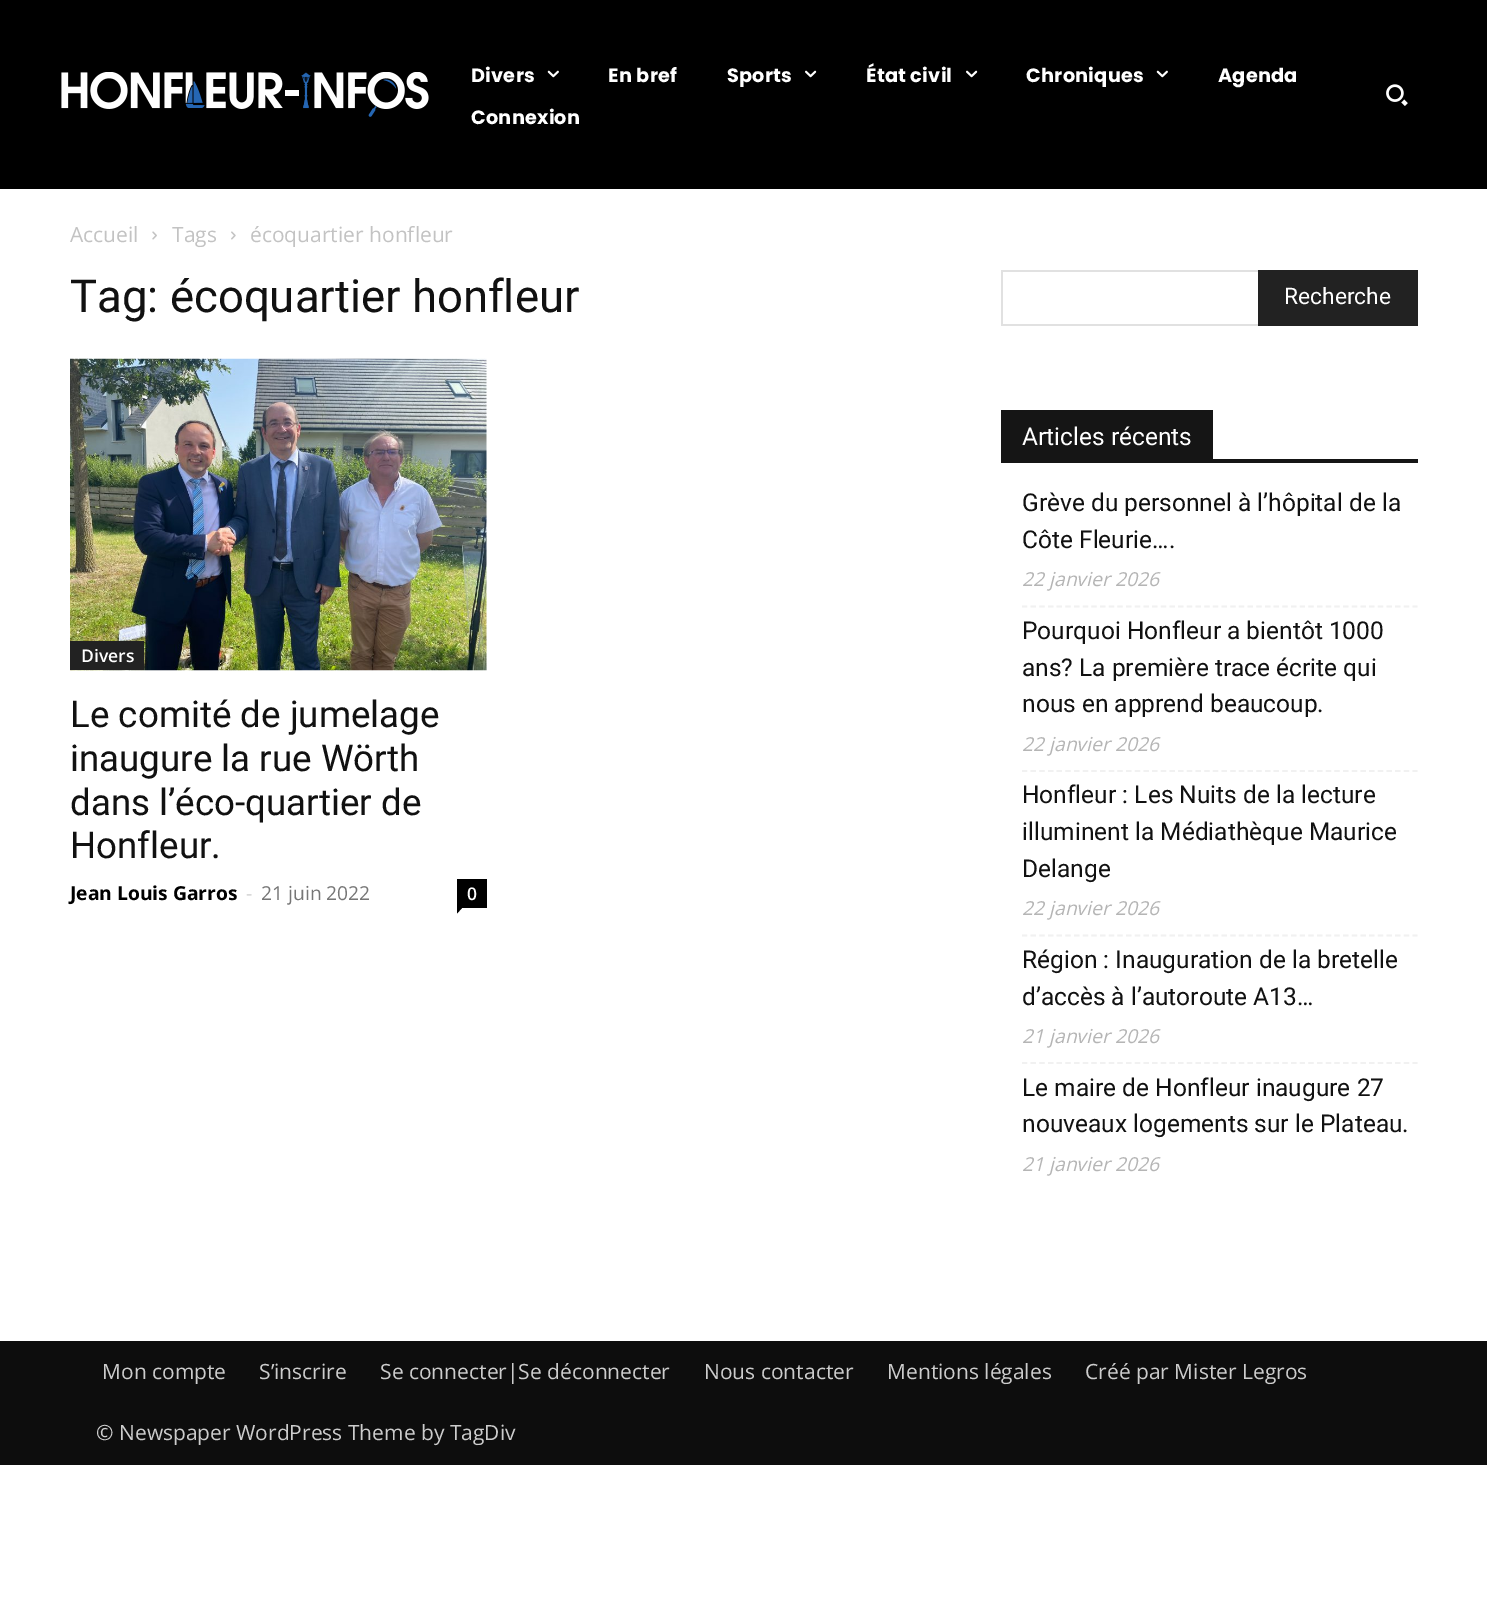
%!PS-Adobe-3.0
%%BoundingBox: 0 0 1487 1606
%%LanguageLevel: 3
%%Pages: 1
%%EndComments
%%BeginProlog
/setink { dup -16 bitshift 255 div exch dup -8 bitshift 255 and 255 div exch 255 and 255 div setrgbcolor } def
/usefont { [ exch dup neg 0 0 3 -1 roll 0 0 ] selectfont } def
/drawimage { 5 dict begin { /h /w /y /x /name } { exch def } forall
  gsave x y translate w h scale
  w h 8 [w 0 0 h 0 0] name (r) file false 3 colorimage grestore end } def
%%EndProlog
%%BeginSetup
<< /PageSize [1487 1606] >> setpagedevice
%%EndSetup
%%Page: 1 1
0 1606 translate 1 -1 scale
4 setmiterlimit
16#FFFFFF setink
0 0 1487 1606 rectfill
16#000000 setink
0 0 1487 189 rectfill
(img1.raw) 61 72 368 45 drawimage
/Poppins-Bold 19.25 usefont
16#FFFFFF setink
471 82 moveto 0.25 0 (Divers) ashow
(img2.raw) 547 70 12 8 drawimage
608 82 moveto 0.25 0 (En bref) ashow
727 82 moveto 0.25 0 (Sports) ashow
(img3.raw) 805 70 12 8 drawimage
866 82 moveto 0.25 0 (État civil) ashow
(img3.raw) 966 70 12 8 drawimage
1026 82 moveto 0.25 0 (Chroniques) ashow
(img2.raw) 1156 70 12 8 drawimage
1218 82 moveto 0.25 0 (Agenda) ashow
471 124 moveto 0.25 0 (Connexion) ashow
(img4.raw) 1386 84 22 22 drawimage
/OpenSans-Regular 21 usefont
16#C3C3C3 setink
70 242 moveto (Accueil) show
(img5.raw) 152 231 5 9 drawimage
172 242 moveto (Tags) show
(img6.raw) 231 231 5 9 drawimage
250 242 moveto (écoquartier honfleur) show
/Roboto-Regular 45.5 usefont
16#111111 setink
70 312 moveto (Tag: écoquartier honfleur) show
(img7.raw) 70 358 417 313 drawimage
16#222222 setink
70 641 74 29 rectfill
/OpenSans-SemiBold 17.5 usefont
16#FFFFFF setink
81 662 moveto (Divers) show
/Roboto-Regular 36.75 usefont
16#111111 setink
[
    [(Le comité de jumelage) 70 727]
    [(inaugure la rue Wörth) 70 771]
    [(dans l’éco-quartier de) 70 815]
    [(Honfleur.) 70 858]
] { aload pop moveto show } forall
/OpenSans-Bold 19.25 usefont
16#000000 setink
70 900 moveto (Jean Louis Garros) show
/OpenSans-Regular 19.25 usefont
16#CCCCCC setink
246 900 moveto (-) show
16#767676 setink
261 900 moveto (21 juin 2022) show
16#000000 setink
457 879 30 29 rectfill
/OpenSans-SemiBold 17.5 usefont
16#FFFFFF setink
467 900 moveto (0) show
16#000000 setink
457 908 moveto 462 908 lineto 457 913.5 lineto closepath fill
[
    [1001 270 257 2 16#E1E1E1]
    [1001 324 257 2 16#E1E1E1]
    [1001 270 2 56 16#E1E1E1]
    [1258 270 160 56 16#222222]
] { aload pop setink rectfill } forall
/Roboto-Regular 22.75 usefont
16#FFFFFF setink
1284 304 moveto (Recherche) show
16#151515 setink
1001 459 417 4 rectfill
1001 410 212 49 rectfill
/Roboto-Regular 24.5 usefont
16#FFFFFF setink
1022 445 moveto (Articles récents) show
16#F1F1F1 setink
1.8 setlinewidth
[5.25 3.43] 0 setdash
1022 606.5 moveto 1417.5 606.5 lineto stroke
16#111111 setink
1022 511 moveto (Grève du personnel à l’hôpital de la) show
1022 548 moveto (Côte Fleurie….) show
/OpenSans-Italic 19.25 usefont
16#B5B5B5 setink
1022 586 moveto (22 janvier 2026) show
16#F1F1F1 setink
1022 771 moveto 1417.5 771 lineto stroke
/Roboto-Regular 24.5 usefont
16#111111 setink
[
    [(Pourquoi Honfleur a bientôt 1000) 1022 639]
    [(ans? La première trace écrite qui) 1022 676]
    [(nous en apprend beaucoup.) 1022 712]
] { aload pop moveto show } forall
/OpenSans-Italic 19.25 usefont
16#B5B5B5 setink
1022 751 moveto (22 janvier 2026) show
16#F1F1F1 setink
1022 935.5 moveto 1417.5 935.5 lineto stroke
/Roboto-Regular 24.5 usefont
16#111111 setink
[
    [(Honfleur : Les Nuits de la lecture) 1022 803]
    [(illuminent la Médiathèque Maurice) 1022 840]
    [(Delange) 1022 877]
] { aload pop moveto show } forall
/OpenSans-Italic 19.25 usefont
16#B5B5B5 setink
1022 915 moveto (22 janvier 2026) show
16#F1F1F1 setink
1022 1063 moveto 1417.5 1063 lineto stroke
/Roboto-Regular 24.5 usefont
16#111111 setink
1022 968 moveto (Région : Inauguration de la bretelle) show
1022 1005 moveto (d’accès à l’autoroute A13…) show
/OpenSans-Italic 19.25 usefont
16#B5B5B5 setink
1022 1043 moveto (21 janvier 2026) show
/Roboto-Regular 24.5 usefont
16#111111 setink
1022 1096 moveto (Le maire de Honfleur inaugure 27) show
1022 1132 moveto (nouveaux logements sur le Plateau.) show
/OpenSans-Italic 19.25 usefont
16#B5B5B5 setink
1022 1171 moveto (21 janvier 2026) show
16#0D0D0D setink
0 1341 1487 124 rectfill
/OpenSans-Regular 21 usefont
16#CCCCCC setink
[
    [(Mon compte) 102 1379]
    [(S’inscrire) 259 1379]
    [(Se connecter|Se déconnecter) 380 1379]
    [(Nous contacter) 704 1379]
    [(Mentions légales) 887 1379]
    [(Créé par Mister Legros) 1085 1379]
    [(© Newspaper WordPress Theme by TagDiv) 96 1440]
] { aload pop moveto show } forall
showpage
%%EOF
